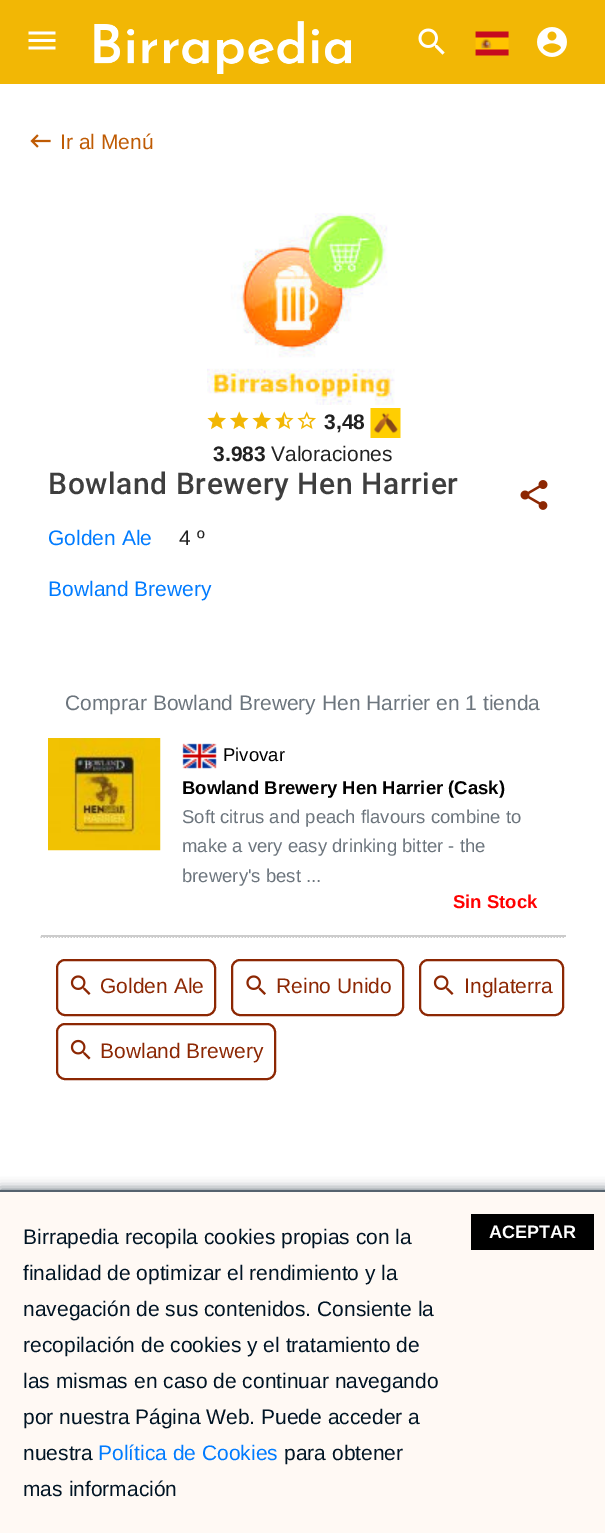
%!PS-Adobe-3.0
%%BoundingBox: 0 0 605 1533
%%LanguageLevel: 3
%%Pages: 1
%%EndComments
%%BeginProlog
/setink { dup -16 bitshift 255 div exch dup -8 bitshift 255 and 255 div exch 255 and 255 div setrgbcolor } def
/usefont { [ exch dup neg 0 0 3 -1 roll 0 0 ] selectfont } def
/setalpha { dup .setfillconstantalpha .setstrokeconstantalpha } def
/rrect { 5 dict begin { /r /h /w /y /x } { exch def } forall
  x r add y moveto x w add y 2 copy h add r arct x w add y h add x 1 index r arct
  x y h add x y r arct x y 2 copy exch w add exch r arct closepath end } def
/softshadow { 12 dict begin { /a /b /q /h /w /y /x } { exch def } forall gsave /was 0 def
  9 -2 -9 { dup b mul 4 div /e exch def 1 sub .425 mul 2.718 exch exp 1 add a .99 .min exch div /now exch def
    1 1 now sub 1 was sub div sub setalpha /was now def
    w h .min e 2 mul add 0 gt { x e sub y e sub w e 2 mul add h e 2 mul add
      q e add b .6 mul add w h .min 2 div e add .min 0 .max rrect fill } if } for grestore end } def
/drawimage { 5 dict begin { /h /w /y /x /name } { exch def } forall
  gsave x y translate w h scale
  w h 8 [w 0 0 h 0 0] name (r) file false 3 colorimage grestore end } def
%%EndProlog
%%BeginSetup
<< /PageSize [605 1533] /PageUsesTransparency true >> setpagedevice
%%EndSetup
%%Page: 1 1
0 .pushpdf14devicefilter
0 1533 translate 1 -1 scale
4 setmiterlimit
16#FFFFFF setink
0 0 605 1533 rectfill
16#F2B705 setink
0 0 605 84 rectfill
(img1.raw) 28 31 28 19 drawimage
(img2.raw) 94 21 257 53 drawimage
(img3.raw) 418 28 27 27 drawimage
(img4.raw) 475 31 34 25 drawimage
(img5.raw) 537 27 30 30 drawimage
(img6.raw) 30 134 21 14 drawimage
/LiberationSans-Regular 21 usefont
16#BF5B04 setink
60 149 moveto (Ir al Menú) show
(img7.raw) 207 213 188 192 drawimage
(img8.raw) 207 411 19 19 drawimage
(img9.raw) 230 411 19 19 drawimage
(img8.raw) 252 411 19 19 drawimage
(img10.raw) 275 411 19 19 drawimage
(img11.raw) 297 411 19 19 drawimage
/LiberationSans-Bold 21 usefont
16#212121 setink
324 429 moveto (3,48) show
(img12.raw) 370 408 31 30 drawimage
213 461 moveto (3.983) show
/LiberationSans-Regular 21 usefont
271 461 moveto (Valoraciones) show
/Roboto-Medium 30 usefont
16#3E3E3E setink
48 494 moveto 0.6 0 (Bowland Brewery Hen Harrier) ashow
(img13.raw) 520 480 28 30 drawimage
/LiberationSans-Regular 21 usefont
16#007BFF setink
48 545 moveto (Golden Ale) show
16#212121 setink
179 545 moveto (4 º) show
16#007BFF setink
48 596 moveto (Bowland Brewery) show
16#6C757D setink
65 710 moveto (Comprar Bowland Brewery Hen Harrier en 1 tienda) show
(img14.raw) 48 738 113 113 drawimage
(img15.raw) 182 743 35 26 drawimage
/LiberationSans-Regular 18.5 usefont
16#000000 setink
223 761 moveto (Pivovar) show
/LiberationSans-Bold 18.5 usefont
182 794 moveto (Bowland Brewery Hen Harrier \(Cask\)) show
/LiberationSans-Regular 18.5 usefont
16#6C757D setink
[
    [(Soft citrus and peach flavours combine to) 182 823]
    [(make a very easy drinking bitter - the) 182 852]
    [(brewery's best ...) 182 882]
] { aload pop moveto show } forall
/LiberationSans-Bold 18.5 usefont
16#FF0000 setink
453 908 moveto (Sin Stock) show
16#CCCCCC setink
41 935 525 2 rectfill
1.5 setlinewidth
[1.5 1.5] 0 setdash
40.5 937 moveto 565.5 937 lineto stroke
16#8C2703 setink
2 setlinewidth
[] 0 setdash
57 960 158 55 8 rrect stroke
(img16.raw) 70 975 21 20 drawimage
/LiberationSans-Regular 21 usefont
100 993 moveto (Golden Ale) show
232 960 171 55 8 rrect stroke
(img17.raw) 246 975 20 20 drawimage
276 993 moveto (Reino Unido) show
420 960 143 55 8 rrect stroke
(img16.raw) 433 975 21 20 drawimage
464 993 moveto (Inglaterra) show
57 1024 218 55 8 rrect stroke
(img18.raw) 70 1039 21 21 drawimage
100 1058 moveto (Bowland Brewery) show
16#56636E setink
0 1190 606 343 0 6 1 softshadow
16#FFF9F4 setink
0 1192 605 341 rectfill
16#56636E setink
0 1190 605 2 rectfill
16#001424 setink
[
    [(Birrapedia recopila cookies propias con la) 23 1244]
    [(finalidad de optimizar el rendimiento y la) 23 1280]
    [(navegación de sus contenidos. Consiente la) 23 1316]
    [(recopilación de cookies y el tratamiento de) 23 1352]
    [(las mismas en caso de continuar navegando) 23 1388]
    [(por nuestra Página Web. Puede acceder a) 23 1424]
    [(nuestra) 23 1460]
] { aload pop moveto show } forall
16#007BFF setink
98 1460 moveto (Política de Cookies) show
16#001424 setink
284 1460 moveto (para obtener) show
23 1496 moveto (mas información) show
16#000000 setink
471 1214 123 36 rectfill
/LiberationSans-Bold 18 usefont
16#FFFFFF setink
489 1238 moveto (ACEPTAR) show
.poppdf14devicefilter showpage
%%EOF
